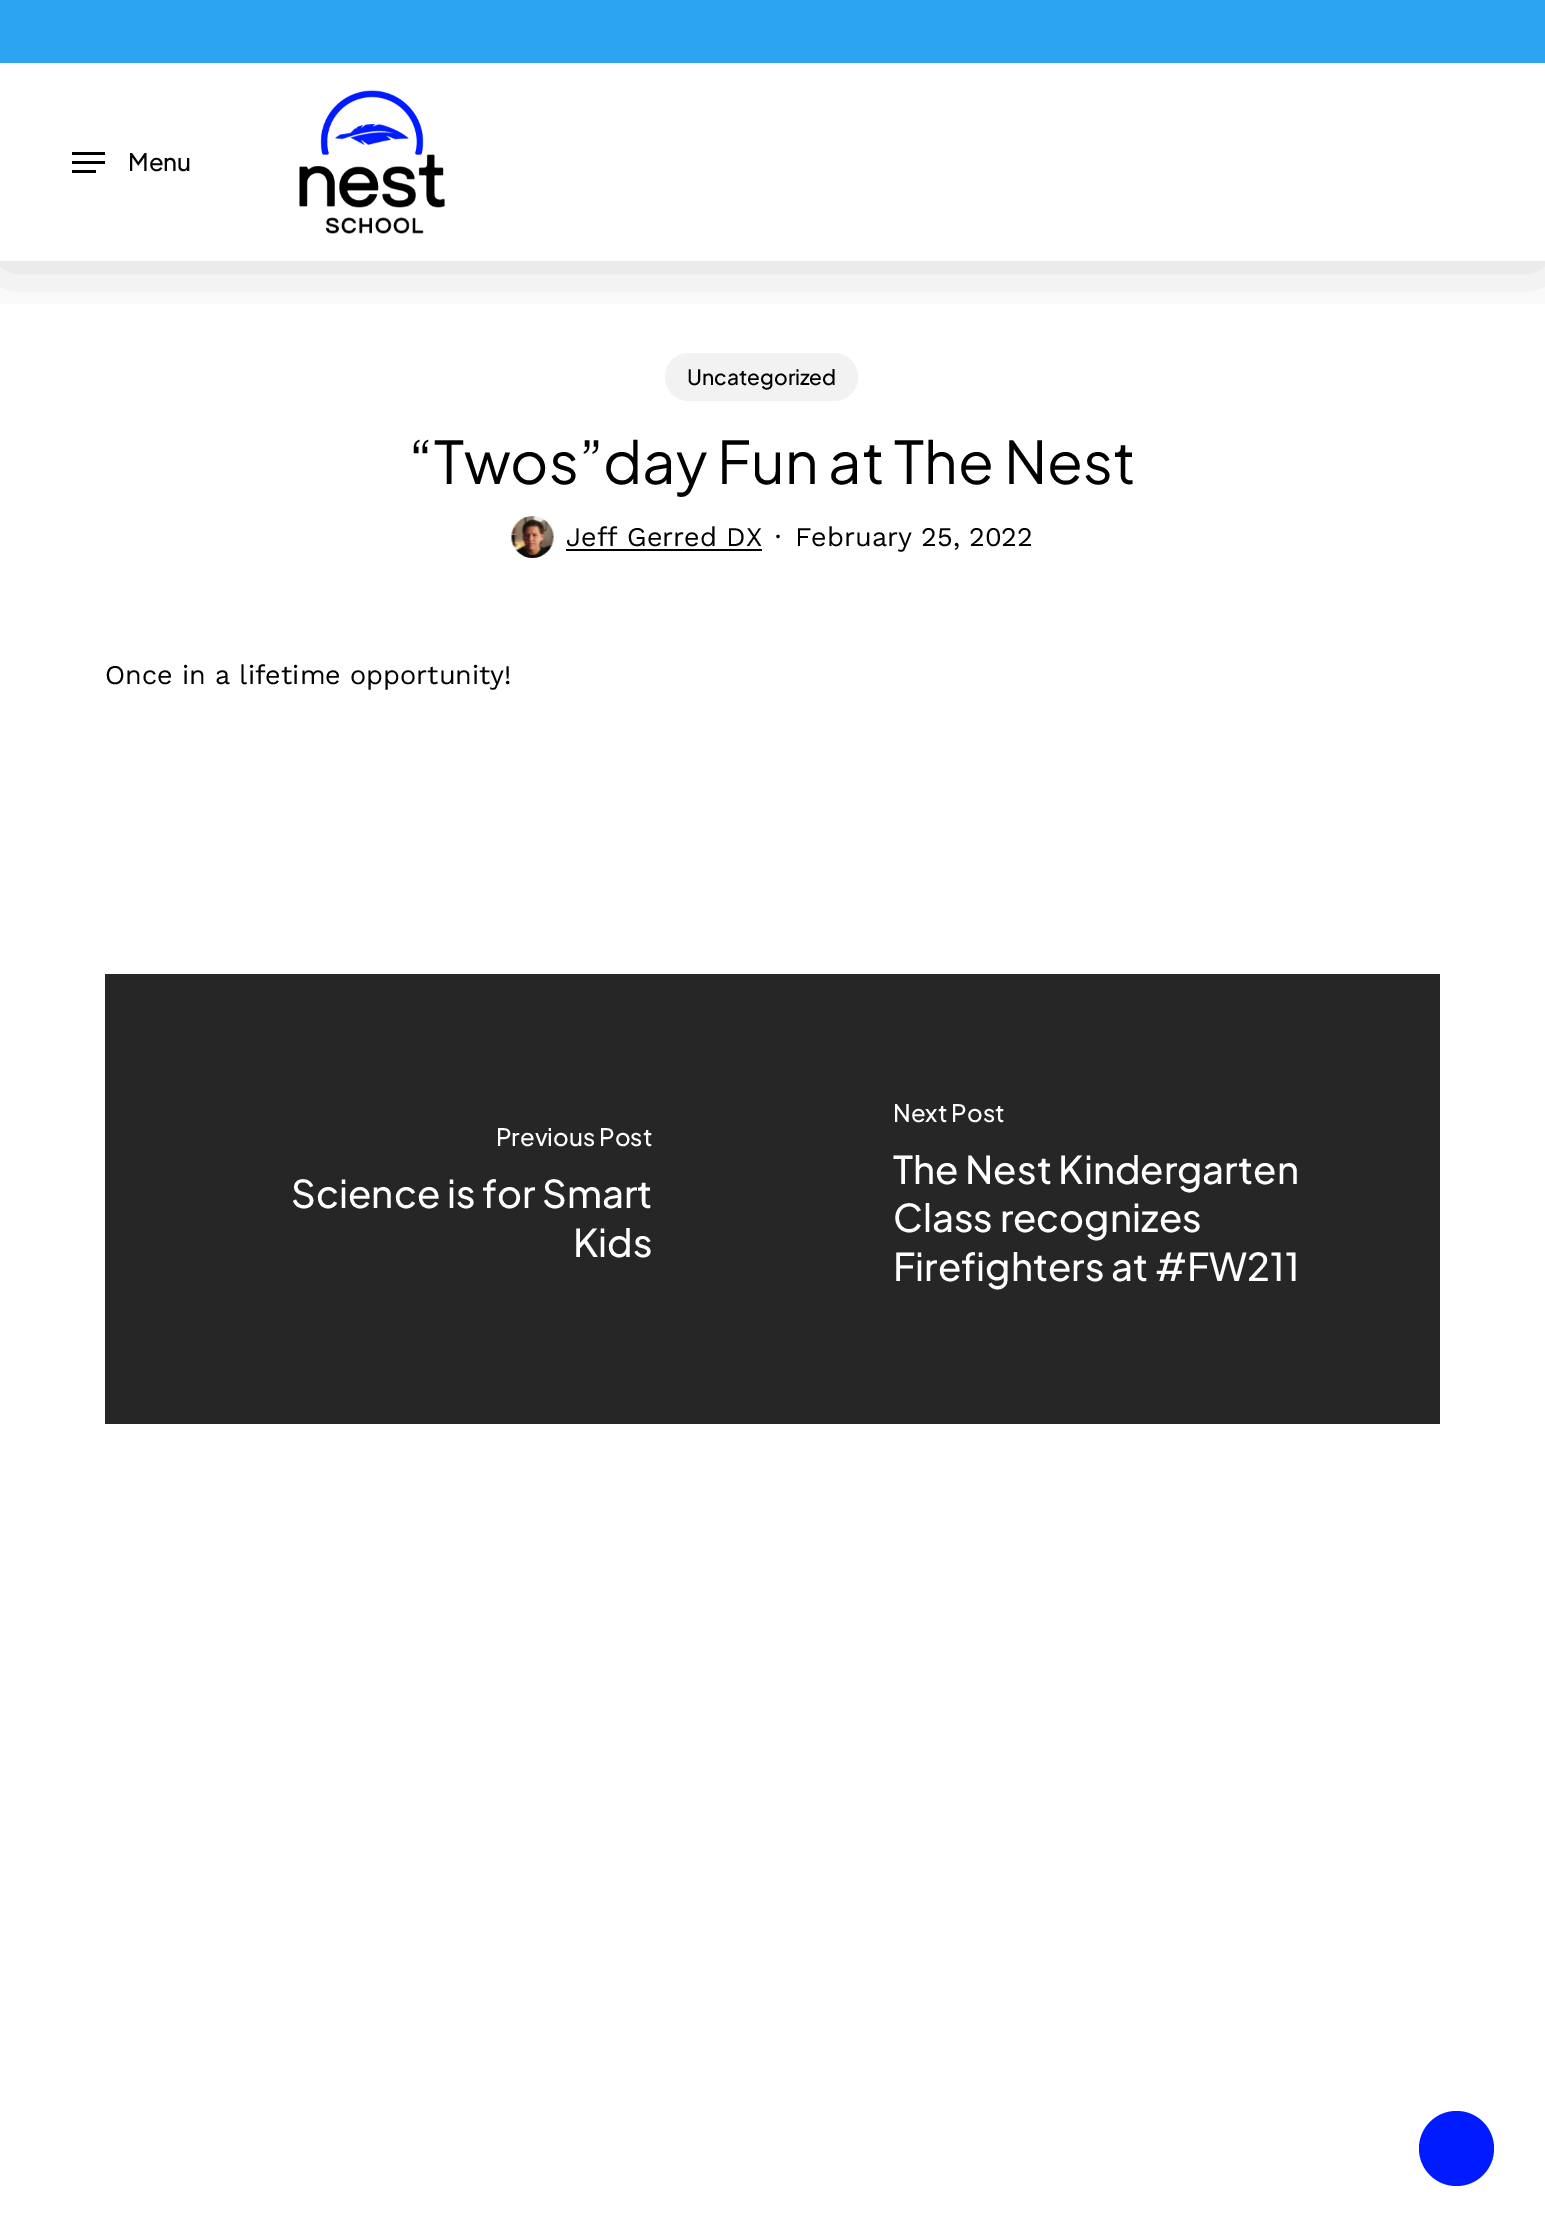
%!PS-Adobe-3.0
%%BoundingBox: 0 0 1545 2236
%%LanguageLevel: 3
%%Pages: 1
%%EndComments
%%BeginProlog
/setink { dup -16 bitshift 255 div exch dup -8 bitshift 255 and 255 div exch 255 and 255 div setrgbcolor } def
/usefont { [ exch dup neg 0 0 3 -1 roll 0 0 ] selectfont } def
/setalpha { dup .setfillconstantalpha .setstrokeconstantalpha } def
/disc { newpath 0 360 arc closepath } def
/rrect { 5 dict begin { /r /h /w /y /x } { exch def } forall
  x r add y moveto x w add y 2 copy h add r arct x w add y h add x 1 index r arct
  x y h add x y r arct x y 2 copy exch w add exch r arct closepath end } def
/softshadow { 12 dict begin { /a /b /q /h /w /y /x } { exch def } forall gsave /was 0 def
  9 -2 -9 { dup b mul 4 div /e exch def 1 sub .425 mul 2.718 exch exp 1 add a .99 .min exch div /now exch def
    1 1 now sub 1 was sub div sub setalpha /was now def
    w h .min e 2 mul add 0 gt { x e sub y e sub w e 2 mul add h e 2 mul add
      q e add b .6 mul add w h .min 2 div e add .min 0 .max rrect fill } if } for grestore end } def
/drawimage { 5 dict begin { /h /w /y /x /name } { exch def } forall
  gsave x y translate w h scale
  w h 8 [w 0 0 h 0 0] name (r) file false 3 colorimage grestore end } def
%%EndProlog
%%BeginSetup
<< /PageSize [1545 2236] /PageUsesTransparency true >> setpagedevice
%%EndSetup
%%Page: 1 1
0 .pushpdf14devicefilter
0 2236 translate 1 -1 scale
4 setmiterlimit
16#FFFFFF setink
0 0 1545 2236 rectfill
16#F2F2F2 setink
665 353 193 48 24 rrect fill
gsave
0 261 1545 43 rectclip
16#000000 setink
0 5 1545 261 0 34 0.15 softshadow
grestore
[
    [0 0 1545 63 16#2DA4F2]
    [72 152 33 3 16#000000]
    [72 170 24 3 16#000000]
    [72 161 33 3 16#000000]
] { aload pop setink rectfill } forall
/PlusJakartaSans-Medium 24 usefont
128 171 moveto (Menu) show
(img1.raw) 299 90 146 144 drawimage
/PlusJakartaSans-Medium 21 usefont
687 385 moveto (Uncategorized) show
/PlusJakartaSans-Regular 58.6 usefont
409 484 moveto (“Twos”day Fun at The Nest) show
(img2.raw) 511 516 43 42 drawimage
/WorkSans-Regular 27 usefont
566 546 moveto (Jeff Gerred DX) show
566 549 196 2 rectfill
[
    [(·) 775 546]
    [(February 25, 2022) 795 546]
    [(Once in a lifetime opportunity!) 105 684]
] { aload pop moveto show } forall
16#262626 setink
105 974 1335 450 rectfill
/PlusJakartaSans-Medium 24 usefont
16#FFFFFF setink
496 1146 moveto (Previous Post) show
/PlusJakartaSans-Medium 38.25 usefont
291 1208 moveto (Science is for Smart) show
573 1257 moveto (Kids) show
/PlusJakartaSans-Medium 24 usefont
893 1122 moveto (Next Post) show
/PlusJakartaSans-Medium 38.25 usefont
[
    [(The Nest Kindergarten) 893 1184]
    [(Class recognizes) 893 1232]
    [(Firefighters at #FW211) 893 1281]
] { aload pop moveto show } forall
16#001BFF setink
1456.5 2148.5 37.5 disc fill
.poppdf14devicefilter showpage
%%EOF
